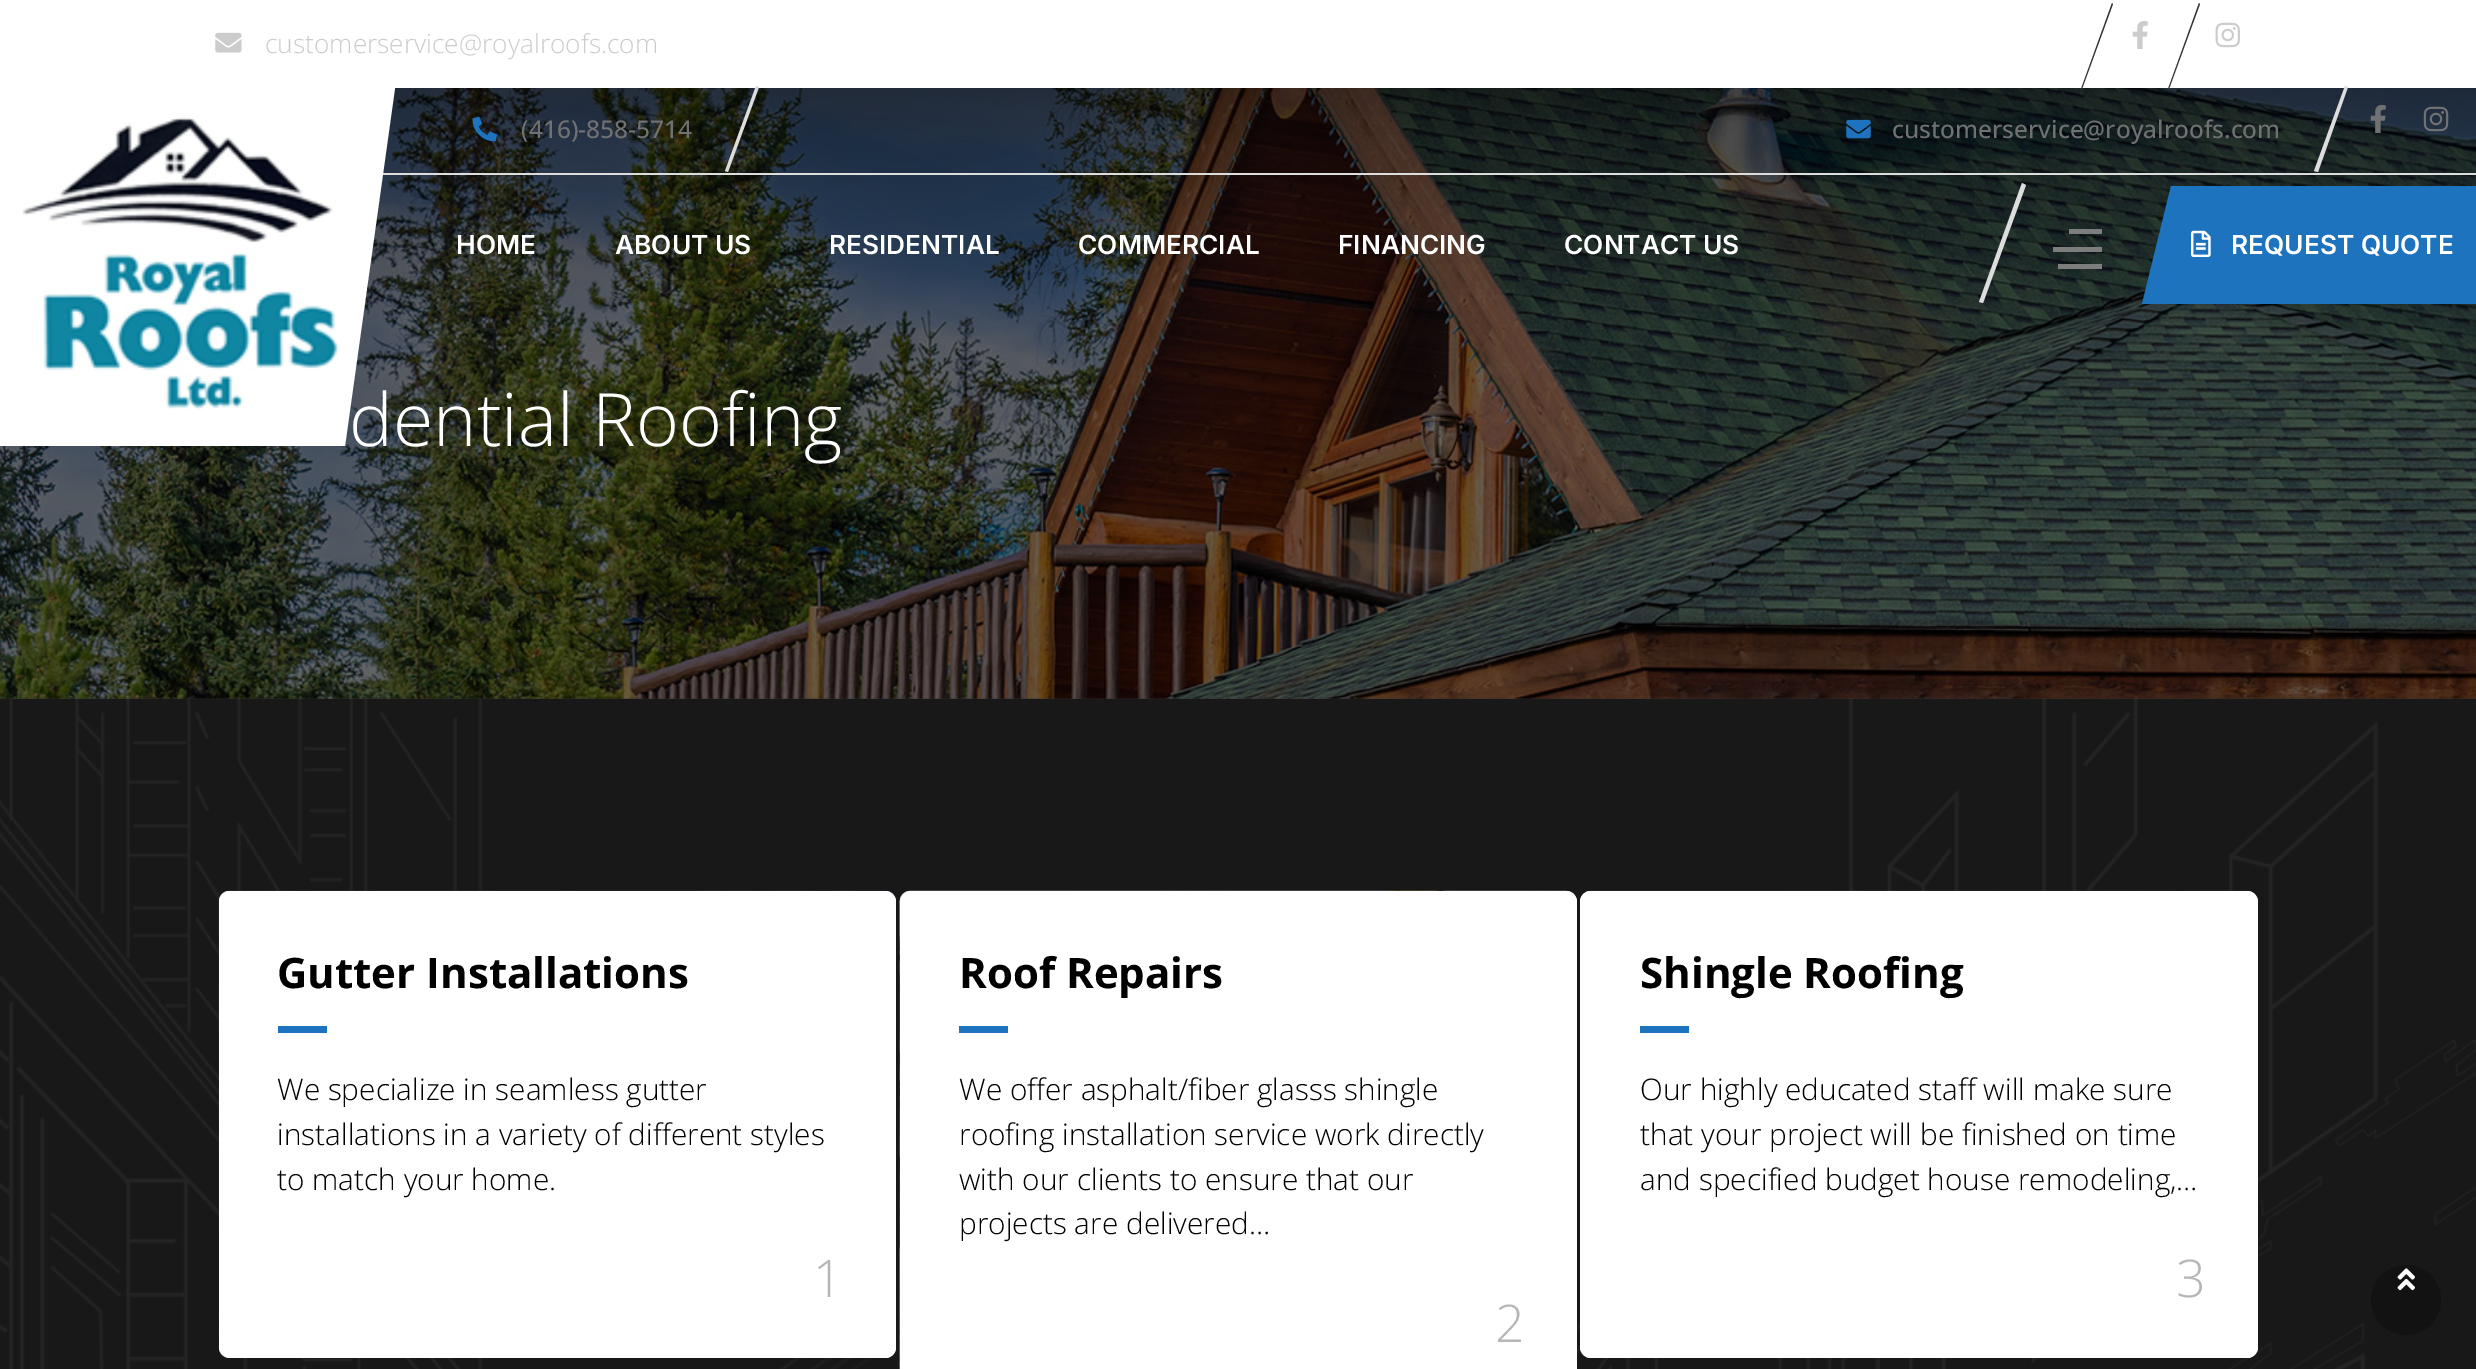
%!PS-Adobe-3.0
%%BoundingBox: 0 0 2476 1369
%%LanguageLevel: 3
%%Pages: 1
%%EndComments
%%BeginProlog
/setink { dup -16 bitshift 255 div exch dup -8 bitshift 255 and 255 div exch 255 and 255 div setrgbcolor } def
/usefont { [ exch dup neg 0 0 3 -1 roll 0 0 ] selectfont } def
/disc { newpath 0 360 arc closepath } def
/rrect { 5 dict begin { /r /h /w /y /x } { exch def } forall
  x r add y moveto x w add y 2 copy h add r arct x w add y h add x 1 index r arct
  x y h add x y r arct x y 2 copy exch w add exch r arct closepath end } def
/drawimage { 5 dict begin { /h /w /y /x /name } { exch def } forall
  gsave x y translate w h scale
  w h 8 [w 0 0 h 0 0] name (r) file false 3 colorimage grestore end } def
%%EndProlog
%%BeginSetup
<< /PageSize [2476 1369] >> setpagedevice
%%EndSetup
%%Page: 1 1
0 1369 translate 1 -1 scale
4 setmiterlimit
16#191818 setink
0 0 2476 1369 rectfill
16#FFFFFF setink
0 0 2476 88 rectfill
(img1.raw) 215 32 27 21 drawimage
/OpenSans-Light 26.25 usefont
16#CCCCCC setink
265 53 moveto (customerservice@royalroofs.com) show
(img11.raw) 0 698 2476 671 drawimage
(img10.raw) 0 88 2476 611 drawimage
16#323232 setink
2112 3 moveto 2113 4 lineto 2082 89 lineto 2081 89 lineto closepath fill
(img2.raw) 2132 21 16 28 drawimage
2199 3 moveto 2200 4 lineto 2169 89 lineto 2168 89 lineto closepath fill
(img3.raw) 2215 22 25 26 drawimage
16#DDDDDD setink
382 173 2094 2 rectfill
16#FFFFFF setink
-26 88 moveto 395 88 lineto 345 446 lineto -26 446 lineto closepath fill
(img4.raw) 22 117 317 293 drawimage
(img5.raw) 472 116 25 26 drawimage
/OpenSans-Medium 24.5 usefont
16#707173 setink
521 138 moveto (\(416\)-858-5714) show
16#DDDDDD setink
756 86 moveto 759 87 lineto 728 172 lineto 725 171 lineto closepath fill
(img6.raw) 1846 119 25 20 drawimage
16#707173 setink
1892 138 moveto (customerservice@royalroofs.com) show
16#DDDDDD setink
2345 86 moveto 2348 87 lineto 2318 172 lineto 2314 171 lineto closepath fill
(img7.raw) 2370 105 16 28 drawimage
(img8.raw) 2423 106 26 26 drawimage
/Inter-SemiBold 26.25 usefont
16#FFFFFF setink
[
    [(HOME) 456 254]
    [(ABOUT US) 615 254]
    [(RESIDENTIAL) 829 254]
    [(COMMERCIAL) 1078 254]
    [(FINANCING) 1338 254]
    [(CONTACT US) 1564 254]
] { aload pop moveto show } forall
16#DDDDDD setink
2022 183 moveto 2026 185 lineto 1983 303 lineto 1979 302 lineto closepath fill
[
    [2069 229 33 5 16#7D7D7D]
    [2053 247 49 5 16#7D7D7D]
    [2058 264 44 5 16#7D7D7D]
] { aload pop setink rectfill } forall
16#1E73BE setink
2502 186 moveto 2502 304 lineto 2142 304 lineto 2171 186 lineto closepath fill
(img9.raw) 2191 230 20 27 drawimage
16#FFFFFF setink
2231 254 moveto (REQUEST QUOTE) show
/OpenSans-Light 73.5 usefont
349 446 moveto (dential Roofing) show
(img12.raw) 218 890 678 468 drawimage
219 891 677 467 11 rrect fill
/OpenSans-Bold 42 usefont
16#000000 setink
277 988 moveto (Gutter Installations) show
16#1E73BE setink
278 1026 49 7 rectfill
/OpenSans-Light 29.75 usefont
16#000000 setink
[
    [(We specialize in seamless gutter) 277 1100]
    [(installations in a variety of different styles) 277 1145]
    [(to match your home.) 277 1190]
] { aload pop moveto show } forall
/OpenSans-Light 52 usefont
16#B6B6B6 setink
813 1297 moveto (1) show
(img13.raw) 899 890 678 479 drawimage
16#FFFFFF setink
900 891 677 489 11 rrect fill
/OpenSans-Bold 42 usefont
16#000000 setink
959 988 moveto (Roof Repairs) show
16#1E73BE setink
959 1026 49 7 rectfill
/OpenSans-Light 29.75 usefont
16#000000 setink
[
    [(We offer asphalt/fiber glasss shingle) 959 1100]
    [(roofing installation service work directly) 959 1145]
    [(with our clients to ensure that our) 959 1190]
    [(projects are delivered…) 959 1234]
] { aload pop moveto show } forall
/OpenSans-Light 52 usefont
16#B6B6B6 setink
1495 1342 moveto (2) show
(img14.raw) 1580 890 678 468 drawimage
16#FFFFFF setink
1580 891 678 467 11 rrect fill
/OpenSans-Bold 42 usefont
16#000000 setink
1640 988 moveto (Shingle Roofing) show
16#1E73BE setink
1640 1026 49 7 rectfill
/OpenSans-Light 29.75 usefont
16#000000 setink
[
    [(Our highly educated staff will make sure) 1640 1100]
    [(that your project will be finished on time) 1640 1145]
    [(and specified budget house remodeling,…) 1640 1190]
] { aload pop moveto show } forall
/OpenSans-Light 52 usefont
16#B6B6B6 setink
2176 1297 moveto (3) show
16#131212 setink
2406 1300 35 disc fill
(img15.raw) 2397 1268 18 23 drawimage
showpage
%%EOF
